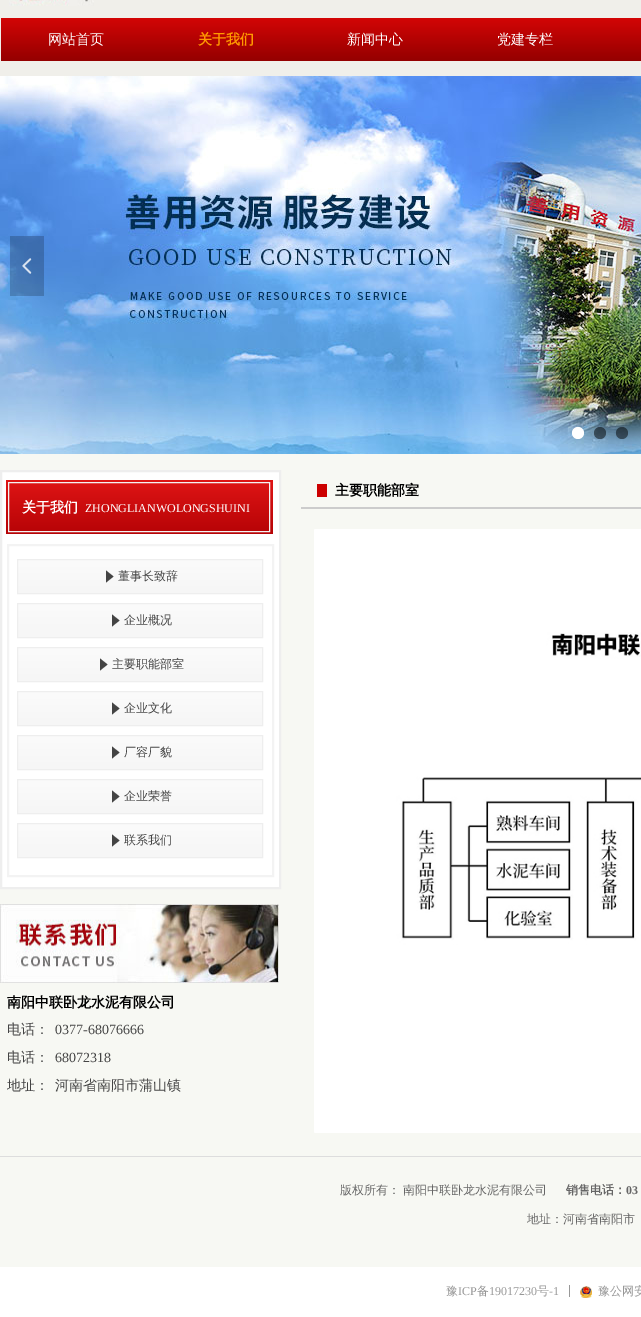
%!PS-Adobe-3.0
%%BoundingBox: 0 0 641 1317
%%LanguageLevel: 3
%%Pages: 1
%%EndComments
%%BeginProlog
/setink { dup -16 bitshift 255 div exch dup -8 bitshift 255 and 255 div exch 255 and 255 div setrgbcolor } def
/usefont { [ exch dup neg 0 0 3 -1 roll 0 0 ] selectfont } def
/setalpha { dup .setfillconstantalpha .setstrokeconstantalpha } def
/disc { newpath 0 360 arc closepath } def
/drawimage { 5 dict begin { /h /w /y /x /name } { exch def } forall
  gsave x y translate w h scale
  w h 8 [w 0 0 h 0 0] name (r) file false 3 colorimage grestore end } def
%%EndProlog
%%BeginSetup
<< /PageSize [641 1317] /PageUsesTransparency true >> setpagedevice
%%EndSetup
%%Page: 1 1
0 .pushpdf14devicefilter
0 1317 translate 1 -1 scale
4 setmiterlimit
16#FFFFFF setink
0 0 641 1317 rectfill
16#F0EFEA setink
0 0 641 76 rectfill
(img1.raw) 9 0 85 6 drawimage
gsave 1 18 moveto 151 18 lineto 151 61 lineto 1 61 lineto closepath clip newpath
<< /ShadingType 2 /ColorSpace /DeviceRGB /Coords [76 18 76 61] /Extend [true true] /Function << /FunctionType 2 /Domain [0 1] /C0 [0.827 0.02 0.02] /C1 [0.58 0 0] /N 1 >> >> shfill grestore
/WenQuanYiZenHei-Medium 14 usefont
16#FFFFFF setink
48 44 moveto (网站首页) show
gsave 151 18 moveto 301 18 lineto 301 61 lineto 151 61 lineto closepath clip newpath
<< /ShadingType 2 /ColorSpace /DeviceRGB /Coords [226 18 226 61] /Extend [true true] /Function << /FunctionType 2 /Domain [0 1] /C0 [0.827 0.02 0.02] /C1 [0.58 0 0] /N 1 >> >> shfill grestore
/WenQuanYiZenHei-Bold 14 usefont
16#FF9900 setink
198 44 moveto (关于我们) show
gsave 301 18 moveto 450 18 lineto 450 61 lineto 301 61 lineto closepath clip newpath
<< /ShadingType 2 /ColorSpace /DeviceRGB /Coords [376 18 376 61] /Extend [true true] /Function << /FunctionType 2 /Domain [0 1] /C0 [0.827 0.02 0.02] /C1 [0.58 0 0] /N 1 >> >> shfill grestore
/WenQuanYiZenHei-Medium 14 usefont
16#FFFFFF setink
347 44 moveto (新闻中心) show
gsave 450 18 moveto 600 18 lineto 600 61 lineto 450 61 lineto closepath clip newpath
<< /ShadingType 2 /ColorSpace /DeviceRGB /Coords [525 18 525 61] /Extend [true true] /Function << /FunctionType 2 /Domain [0 1] /C0 [0.827 0.02 0.02] /C1 [0.58 0 0] /N 1 >> >> shfill grestore
497 44 moveto (党建专栏) show
gsave 600 18 moveto 641 18 lineto 641 61 lineto 600 61 lineto closepath clip newpath
<< /ShadingType 2 /ColorSpace /DeviceRGB /Coords [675 18 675 61] /Extend [true true] /Function << /FunctionType 2 /Domain [0 1] /C0 [0.827 0.02 0.02] /C1 [0.58 0 0] /N 1 >> >> shfill grestore
(img2.raw) 0 76 641 378 drawimage
0.2 setalpha
16#000000 setink
10 236 34 60 rectfill
1 setalpha
(img3.raw) 22 258 10 16 drawimage
16#FFFFFF setink
578 433 6 disc fill
0.5 setalpha
16#000000 setink
600 433 6 disc fill
622 433 6 disc fill
1 setalpha
16#F7F8F3 setink
0 454 641 813 rectfill
16#CC0000 setink
317 484 10 13 rectfill
/WenQuanYiZenHei-Bold 14 usefont
16#000000 setink
335 495 moveto (主要职能部室) show
16#FFFFFF setink
1 471 moveto 280 471 lineto 280 888 lineto 1 888 lineto closepath gsave fill grestore
16#EEEEEE setink
2 setlinewidth
stroke
gsave 6 480 moveto 273 480 lineto 273 534 lineto 6 534 lineto closepath clip newpath
<< /ShadingType 2 /ColorSpace /DeviceRGB /Coords [6 480 6 534] /Extend [true true] /Function << /FunctionType 2 /Domain [0 1] /C0 [0.875 0.082 0.082] /C1 [0.714 0.012 0.024] /N 1 >> >> shfill grestore
16#F3F3F3 setink
1 setlinewidth
8.5 482.5 261 49 rectstroke
16#FFFFFF setink
22 512 moveto (关于我们) show
/LiberationSerif-Regular 12 usefont
85 512 moveto (ZHONGLIANWOLONGSHUINI) show
16#F3F3F3 setink
2 setlinewidth
8 545 265 331 rectstroke
gsave 18 560 moveto 262 560 lineto 262 593 lineto 18 593 lineto closepath clip newpath
<< /ShadingType 2 /ColorSpace /DeviceRGB /Coords [18 560 18 593] /Extend [true true] /Function << /FunctionType 2 /Domain [0 1] /C0 [0.984 0.984 0.984] /C1 [0.965 0.965 0.965] /N 1 >> >> shfill grestore
16#EEEEEE setink
1 setlinewidth
17.5 559.5 245 34 rectstroke
16#444444 setink
106 570.5 moveto 113.5 576.5 lineto 106 582.5 lineto closepath fill
/WenQuanYiZenHei-Medium 12 usefont
118 580 moveto (董事长致辞) show
gsave 18 604 moveto 262 604 lineto 262 637 lineto 18 637 lineto closepath clip newpath
<< /ShadingType 2 /ColorSpace /DeviceRGB /Coords [18 604 18 637] /Extend [true true] /Function << /FunctionType 2 /Domain [0 1] /C0 [0.984 0.984 0.984] /C1 [0.965 0.965 0.965] /N 1 >> >> shfill grestore
16#EEEEEE setink
17.5 603.5 245 34 rectstroke
16#444444 setink
112 614.5 moveto 119.5 620.5 lineto 112 626.5 lineto closepath fill
124 624 moveto (企业概况) show
gsave 18 648 moveto 262 648 lineto 262 681 lineto 18 681 lineto closepath clip newpath
<< /ShadingType 2 /ColorSpace /DeviceRGB /Coords [18 648 18 681] /Extend [true true] /Function << /FunctionType 2 /Domain [0 1] /C0 [0.984 0.984 0.984] /C1 [0.965 0.965 0.965] /N 1 >> >> shfill grestore
16#EEEEEE setink
17.5 647.5 245 34 rectstroke
16#444444 setink
100 658.5 moveto 107.5 664.5 lineto 100 670.5 lineto closepath fill
112 668 moveto (主要职能部室) show
gsave 18 692 moveto 262 692 lineto 262 725 lineto 18 725 lineto closepath clip newpath
<< /ShadingType 2 /ColorSpace /DeviceRGB /Coords [18 692 18 725] /Extend [true true] /Function << /FunctionType 2 /Domain [0 1] /C0 [0.984 0.984 0.984] /C1 [0.965 0.965 0.965] /N 1 >> >> shfill grestore
16#EEEEEE setink
17.5 691.5 245 34 rectstroke
16#444444 setink
112 702.5 moveto 119.5 708.5 lineto 112 714.5 lineto closepath fill
124 712 moveto (企业文化) show
gsave 18 736 moveto 262 736 lineto 262 769 lineto 18 769 lineto closepath clip newpath
<< /ShadingType 2 /ColorSpace /DeviceRGB /Coords [18 736 18 769] /Extend [true true] /Function << /FunctionType 2 /Domain [0 1] /C0 [0.984 0.984 0.984] /C1 [0.965 0.965 0.965] /N 1 >> >> shfill grestore
16#EEEEEE setink
17.5 735.5 245 34 rectstroke
16#444444 setink
112 746.5 moveto 119.5 752.5 lineto 112 758.5 lineto closepath fill
124 756 moveto (厂容厂貌) show
gsave 18 780 moveto 262 780 lineto 262 813 lineto 18 813 lineto closepath clip newpath
<< /ShadingType 2 /ColorSpace /DeviceRGB /Coords [18 780 18 813] /Extend [true true] /Function << /FunctionType 2 /Domain [0 1] /C0 [0.984 0.984 0.984] /C1 [0.965 0.965 0.965] /N 1 >> >> shfill grestore
16#EEEEEE setink
17.5 779.5 245 34 rectstroke
16#444444 setink
112 790.5 moveto 119.5 796.5 lineto 112 802.5 lineto closepath fill
124 800 moveto (企业荣誉) show
gsave 18 824 moveto 262 824 lineto 262 857 lineto 18 857 lineto closepath clip newpath
<< /ShadingType 2 /ColorSpace /DeviceRGB /Coords [18 824 18 857] /Extend [true true] /Function << /FunctionType 2 /Domain [0 1] /C0 [0.984 0.984 0.984] /C1 [0.965 0.965 0.965] /N 1 >> >> shfill grestore
16#EEEEEE setink
17.5 823.5 245 34 rectstroke
16#444444 setink
112 834.5 moveto 119.5 840.5 lineto 112 846.5 lineto closepath fill
124 844 moveto (联系我们) show
(img4.raw) 0 904 279 79 drawimage
/WenQuanYiZenHei-Bold 14 usefont
16#000000 setink
7 1007 moveto (南阳中联卧龙水泥有限公司) show
/WenQuanYiZenHei-Medium 14 usefont
16#444444 setink
7 1034 moveto (电话：) show
/LiberationSerif-Regular 14 usefont
55 1034 moveto (0377-68076666) show
/WenQuanYiZenHei-Medium 14 usefont
7 1062 moveto (电话：) show
/LiberationSerif-Regular 14 usefont
55 1062 moveto (68072318) show
/WenQuanYiZenHei-Medium 14 usefont
7 1090 moveto (地址：) show
55 1090 moveto (河南省南阳市蒲山镇) show
16#CCCCCC setink
301 507 340 2 rectfill
(img5.raw) 314 529 327 604 drawimage
16#DDDDDD setink
0 1156 641 1 rectfill
/WenQuanYiZenHei-Medium 12 usefont
16#666666 setink
340 1194 moveto (版权所有：) show
403 1194 moveto (南阳中联卧龙水泥有限公司) show
/WenQuanYiZenHei-Bold 12 usefont
566 1194 moveto (销售电话：) show
/LiberationSerif-Bold 12 usefont
626 1194 moveto (03) show
/WenQuanYiZenHei-Medium 12 usefont
527 1223 moveto (地址：河南省南阳市) show
16#989898 setink
446 1295 moveto (豫) show
/LiberationSerif-Regular 12 usefont
458 1295 moveto (ICP) show
/WenQuanYiZenHei-Medium 12 usefont
477 1295 moveto (备) show
/LiberationSerif-Regular 12 usefont
489 1295 moveto (19017230) show
/WenQuanYiZenHei-Medium 12 usefont
537 1295 moveto (号) show
/LiberationSerif-Regular 12 usefont
549 1295 moveto (-1) show
569 1285 1 12 rectfill
(img6.raw) 580 1286 12 12 drawimage
/WenQuanYiZenHei-Medium 12 usefont
598 1295 moveto (豫公网安) show
.poppdf14devicefilter showpage
%%EOF
